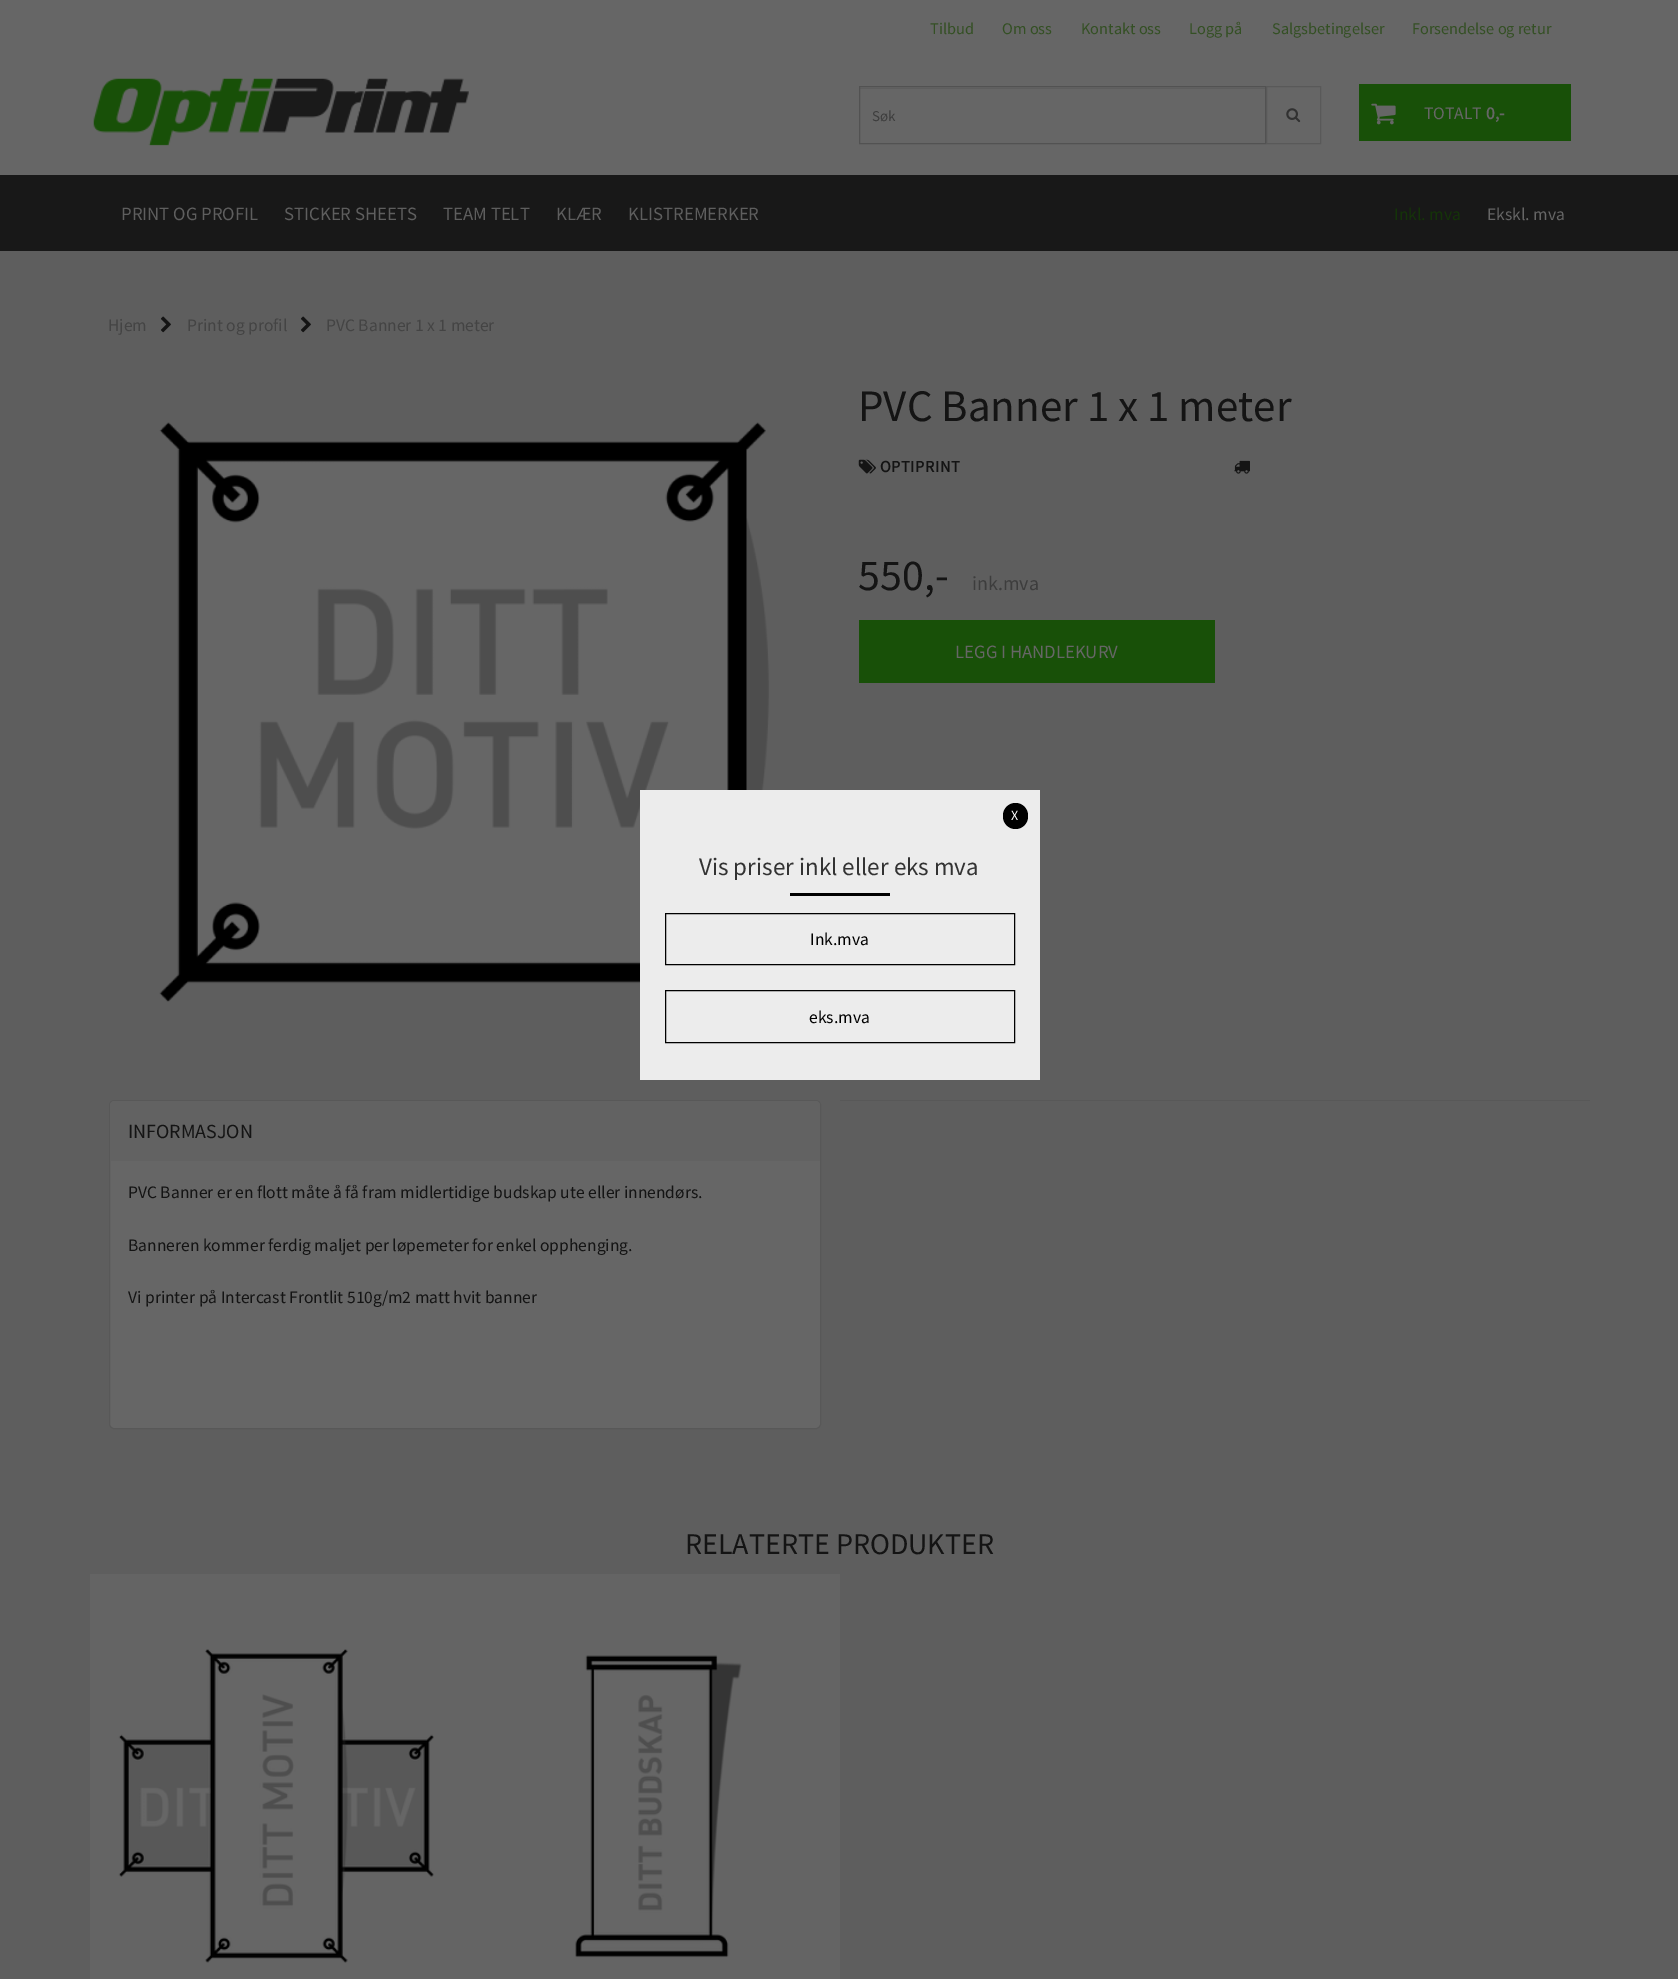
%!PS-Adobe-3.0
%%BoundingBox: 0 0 1678 1979
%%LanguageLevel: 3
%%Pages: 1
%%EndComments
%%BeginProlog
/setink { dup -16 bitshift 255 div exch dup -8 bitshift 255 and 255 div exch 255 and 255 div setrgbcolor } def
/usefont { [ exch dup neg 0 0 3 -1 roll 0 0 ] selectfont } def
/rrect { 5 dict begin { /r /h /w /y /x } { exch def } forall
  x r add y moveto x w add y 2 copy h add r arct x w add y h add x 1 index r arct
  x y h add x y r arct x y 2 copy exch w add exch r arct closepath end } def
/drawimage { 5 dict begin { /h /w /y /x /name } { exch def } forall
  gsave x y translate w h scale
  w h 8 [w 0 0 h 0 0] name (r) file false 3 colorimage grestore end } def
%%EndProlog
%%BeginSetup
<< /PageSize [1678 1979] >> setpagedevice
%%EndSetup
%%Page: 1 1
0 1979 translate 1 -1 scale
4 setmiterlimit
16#5E5E5E setink
0 0 1678 1979 rectfill
16#666666 setink
0 0 1678 175 rectfill
/SourceSansPro-Regular 16.25 usefont
16#345024 setink
[
    [(Tilbud) 930 34]
    [(Om oss) 1002 34]
    [(Kontakt oss) 1081 34]
    [(Logg på) 1189 34]
    [(Salgsbetingelser) 1272 34]
    [(Forsendelse og retur) 1412 34]
] { aload pop moveto show } forall
(img1.raw) 93 78 376 68 drawimage
16#5E5E5E setink
860 88 405 1 rectfill
16#525252 setink
859.5 86.5 406 57 rectstroke
/SourceSansPro-Regular 15 usefont
16#3D3D3D setink
872 121 moveto (Søk) show
16#595959 setink
1266.5 86.5 54 57 rectstroke
(img2.raw) 1286 108 15 15 drawimage
16#185008 setink
1359 84 212 57 rectfill
(img3.raw) 1371 103 25 22 drawimage
/SourceSansPro-Regular 17.5 usefont
16#666666 setink
1424 119 moveto (TOTALT) show
/SourceSansPro-Bold 17.5 usefont
1486 119 moveto (0,-) show
16#181818 setink
0 175 1678 76 rectfill
/SourceSansPro-Regular 18.75 usefont
16#5E5E5E setink
[
    [(PRINT OG PROFIL) 121 220]
    [(STICKER SHEETS) 284 220]
    [(TEAM TELT) 443 220]
    [(KLÆR) 556 220]
    [(KLISTREMERKER) 628 220]
] { aload pop moveto show } forall
/SourceSansPro-Regular 17.5 usefont
16#143408 setink
1394 220 moveto (Inkl. mva) show
16#666666 setink
1487 220 moveto (Ekskl. mva) show
16#444444 setink
108 331 moveto (Hjem) show
(img4.raw) 160 316 11 17 drawimage
187 331 moveto (Print og profil) show
(img4.raw) 300 316 11 17 drawimage
326 331 moveto (PVC Banner 1 x 1 meter) show
(img5.raw) 159 422 611 580 drawimage
/SourceSansPro-Regular 45 usefont
16#141414 setink
858 421 moveto (PVC Banner 1 x 1 meter) show
(img6.raw) 858 459 18 15 drawimage
/SourceSansPro-Bold 16.25 usefont
880 472 moveto 0.6 0 (OPTIPRINT) ashow
(img7.raw) 1234 460 16 14 drawimage
/SourceSansPro-Regular 44 usefont
858 590 moveto (550,-) show
/SourceSansPro-Regular 20 usefont
16#3D3D3D setink
972 590 moveto (ink.mva) show
16#185008 setink
859 620 356 63 rectfill
/SourceSansPro-Regular 18.75 usefont
16#666666 setink
955 658 moveto (LEGG I HANDLEKURV) show
16#585858 setink
840 1100 750 1 rectfill
16#666666 setink
109.5 1100.5 711 328 4.5 rrect gsave fill grestore
16#585858 setink
stroke
16#626262 setink
114 1101 moveto 816 1101 lineto 818 1101 820 1103 820 1105 curveto 820 1161 lineto 110 1161 lineto 110 1105 lineto 110 1103 112 1101 114 1101 curveto closepath fill
/SourceSansPro-Regular 20 usefont
16#141414 setink
128 1138 moveto (INFORMASJON) show
/SourceSansPro-Regular 17.5 usefont
[
    [(PVC Banner er en flott måte å få fram midlertidige budskap ute eller innendørs.) 128 1198]
    [(Banneren kommer ferdig maljet per løpemeter for enkel opphenging.) 128 1251]
    [(Vi printer på Intercast Frontlit 510g/m2 matt hvit banner) 128 1303]
] { aload pop moveto show } forall
16#ECECEC setink
640 790 400 290 rectfill
16#000000 setink
1003 803 25 26 12.5 rrect fill
/SourceSansPro-Regular 14 usefont
16#FFFFFF setink
1011 820 moveto (X) show
/SourceSansPro-Regular 25 usefont
16#333333 setink
699 875 moveto (Vis priser inkl eller eks mva) show
16#000000 setink
790 893 100 3 rectfill
665.5 913.5 349 51 rectstroke
/SourceSansPro-Regular 17.5 usefont
810 945 moveto (Ink.mva) show
665.5 990.5 349 52 rectstroke
809 1023 moveto (eks.mva) show
/SourceSansPro-Regular 30 usefont
16#141414 setink
685 1554 moveto (RELATERTE PRODUKTER) show
16#646464 setink
90 1574 750 405 rectfill
(img8.raw) 118 1649 316 314 drawimage
(img9.raw) 575 1655 167 303 drawimage
showpage
%%EOF
